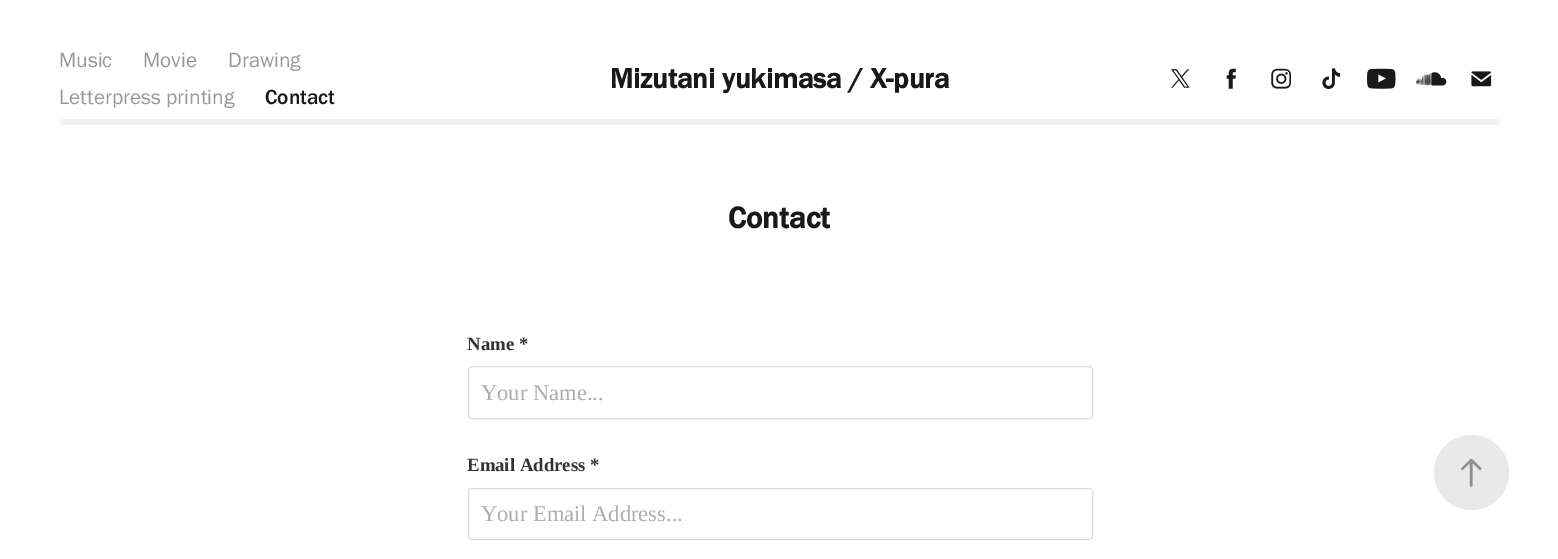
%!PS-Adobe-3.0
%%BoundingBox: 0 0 1558 559
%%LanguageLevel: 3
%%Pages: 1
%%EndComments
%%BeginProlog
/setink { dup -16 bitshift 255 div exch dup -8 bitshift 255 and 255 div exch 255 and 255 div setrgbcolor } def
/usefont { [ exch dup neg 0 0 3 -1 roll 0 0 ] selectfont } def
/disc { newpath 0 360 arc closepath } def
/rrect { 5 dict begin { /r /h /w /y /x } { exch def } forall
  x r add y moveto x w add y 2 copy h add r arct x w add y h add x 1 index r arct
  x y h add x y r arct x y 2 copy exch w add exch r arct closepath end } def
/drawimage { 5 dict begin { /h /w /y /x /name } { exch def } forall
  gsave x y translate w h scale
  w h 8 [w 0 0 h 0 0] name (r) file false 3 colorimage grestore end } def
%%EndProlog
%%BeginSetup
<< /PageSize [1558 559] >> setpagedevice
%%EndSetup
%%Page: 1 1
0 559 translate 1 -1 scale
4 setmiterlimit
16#FFFFFF setink
0 0 1558 559 rectfill
16#F2F2F2 setink
60 119 1440 6 rectfill
/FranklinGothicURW-Regular 21.25 usefont
16#999999 setink
[
    [(Music) 59 67]
    [(Movie) 143 67]
    [(Drawing) 228 67]
    [(Letterpress printing) 59 104]
] { aload pop moveto show } forall
/FranklinGothicURW-Medium 21.25 usefont
16#191919 setink
265 104 moveto (Contact) show
/FranklinGothicURW-Bold 28.75 usefont
610 88 moveto (Mizutani yukimasa / X-pura) show
(img1.raw) 1171 69 19 19 drawimage
(img2.raw) 1226 68 10 21 drawimage
(img3.raw) 1271 68 20 21 drawimage
(img4.raw) 1322 68 18 21 drawimage
(img5.raw) 1367 68 29 21 drawimage
(img6.raw) 1416 72 31 14 drawimage
(img7.raw) 1471 71 21 16 drawimage
/FranklinGothicURW-Bold 31 usefont
728 228 moveto (Contact) show
/LiberationSerif-Bold 18.75 usefont
16#333333 setink
467 350 moveto (Name *) show
16#DDDDDD setink
468.5 366.5 624 52 3.5 rrect stroke
/LiberationSerif-Regular 22.5 usefont
16#ADADAD setink
481 400 moveto (Your Name...) show
/LiberationSerif-Bold 18.75 usefont
16#333333 setink
467 471 moveto (Email Address *) show
16#DDDDDD setink
468.5 488.5 624 51 3.5 rrect stroke
/LiberationSerif-Regular 22.5 usefont
16#ADADAD setink
481 521 moveto (Your Email Address...) show
16#E9E9E9 setink
1471.5 472.5 37.5 disc fill
(img8.raw) 1461 458 21 29 drawimage
showpage
%%EOF
